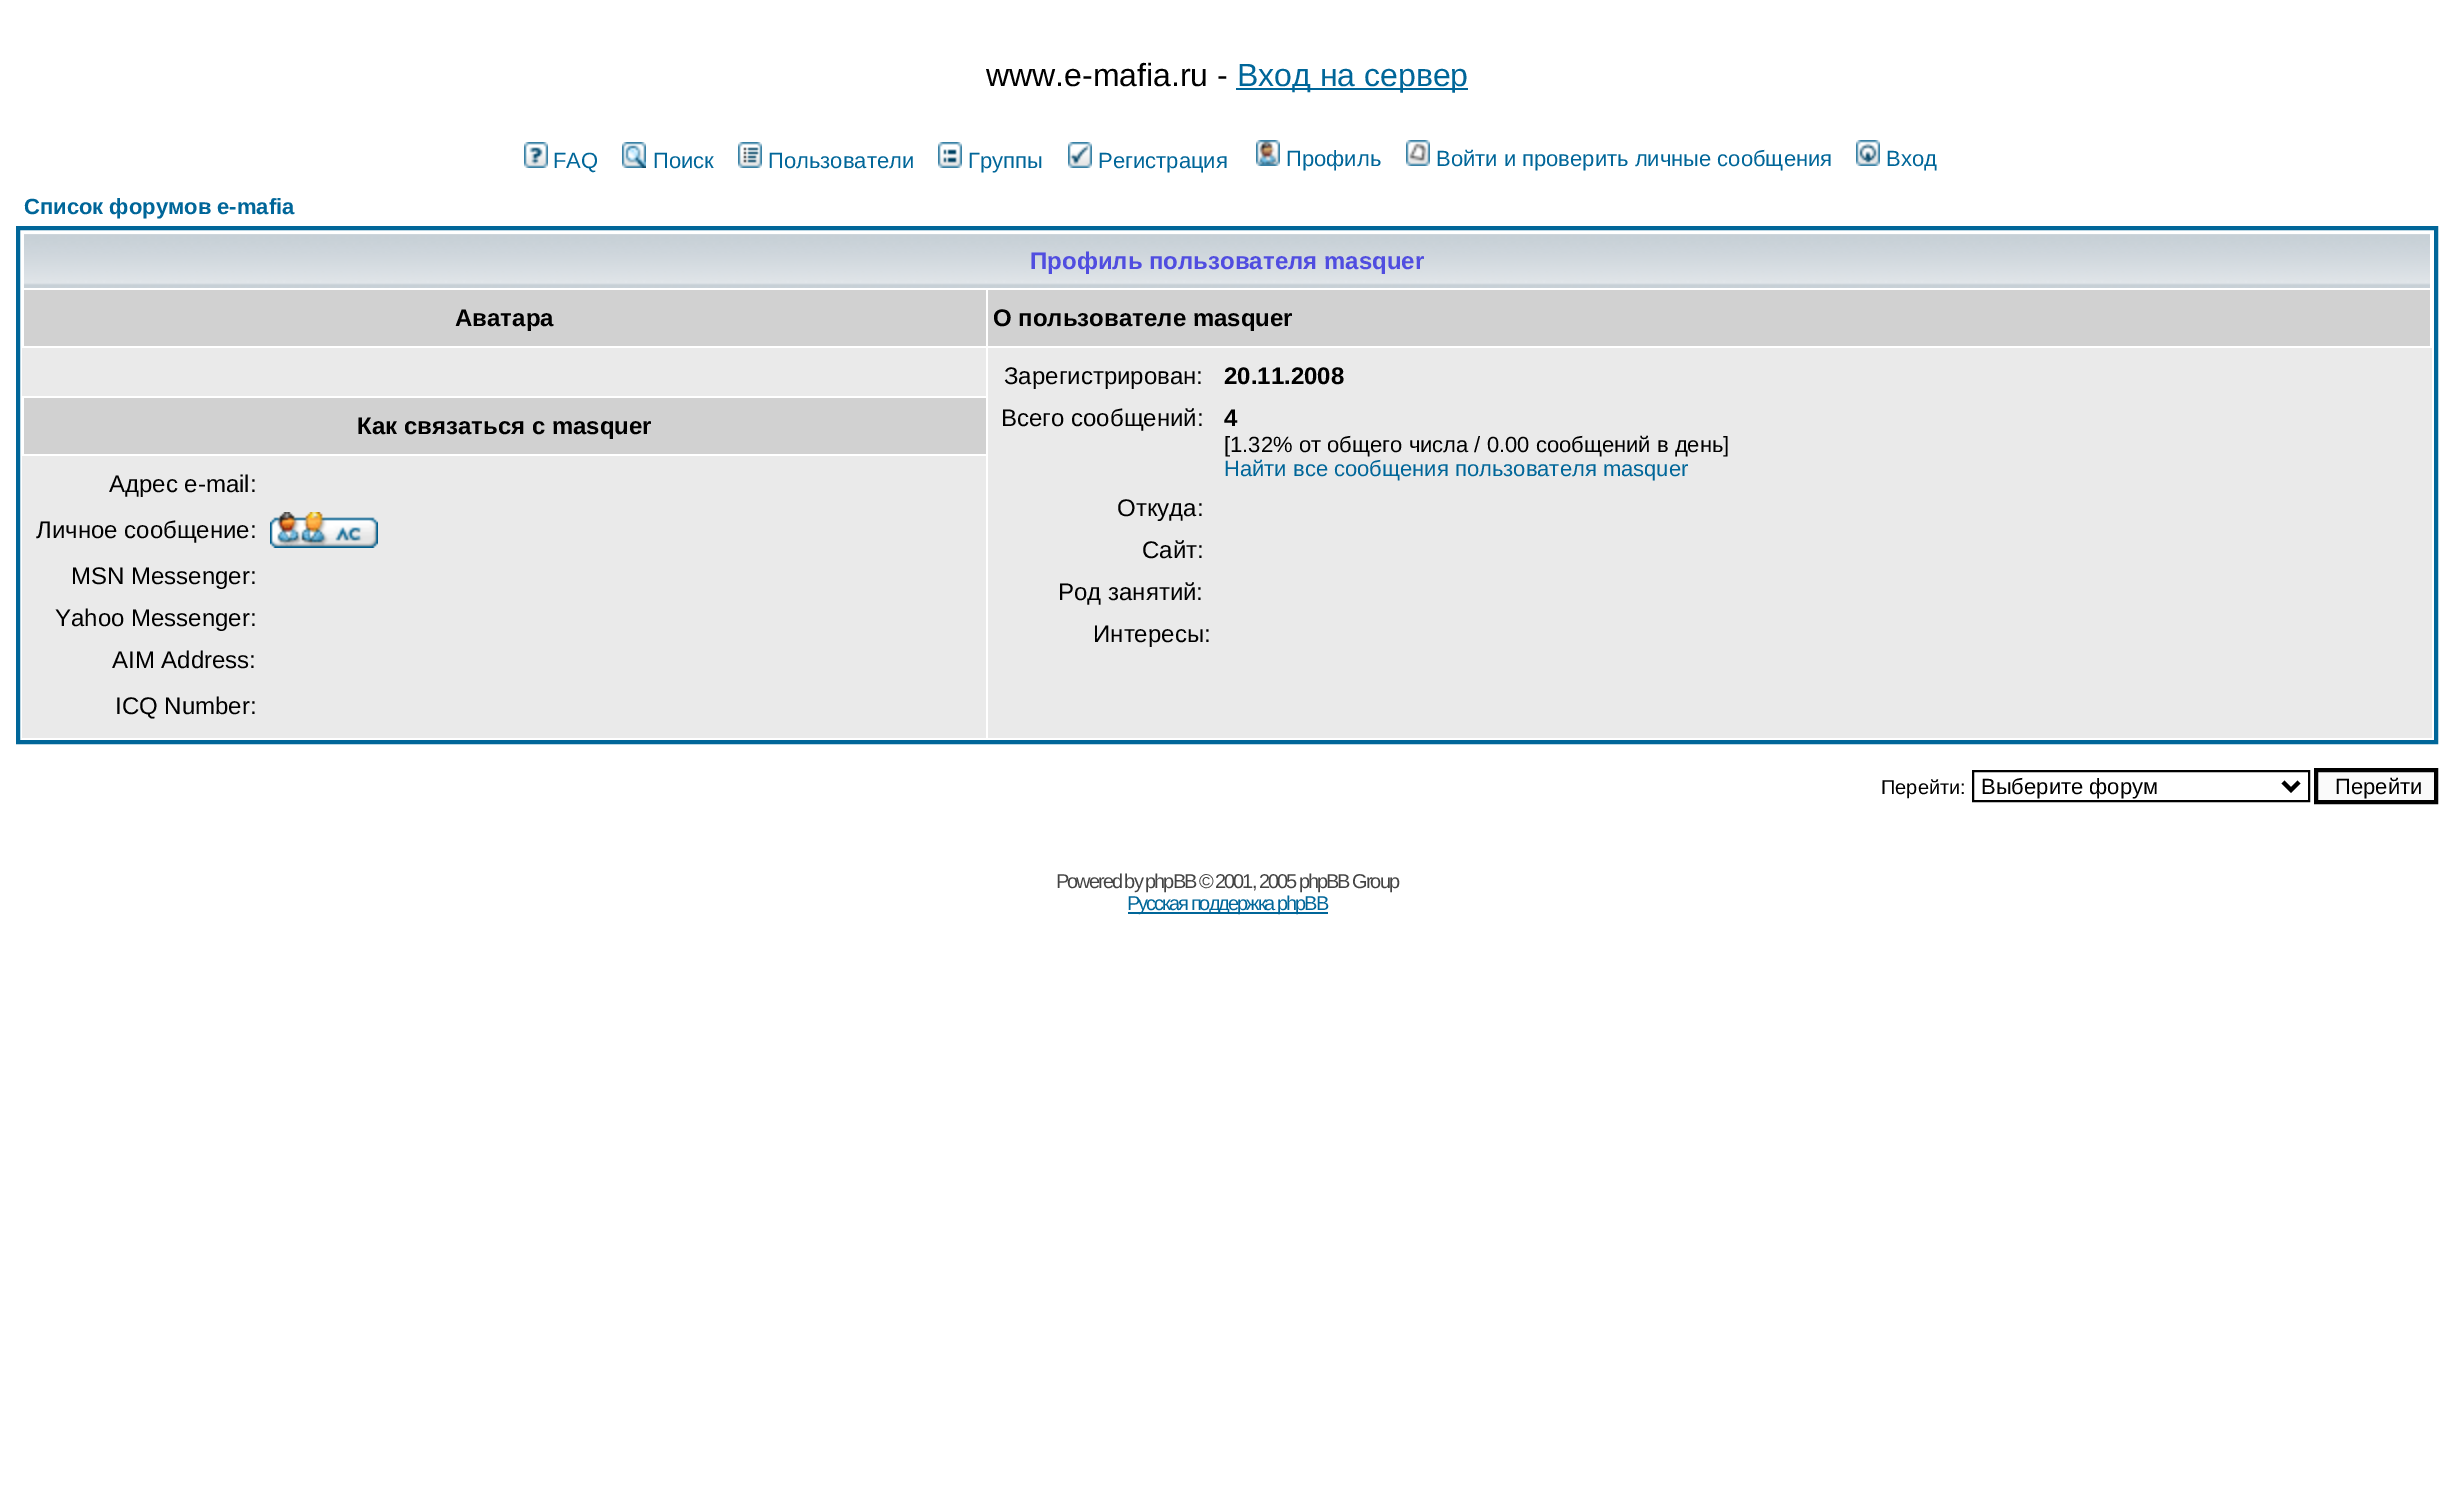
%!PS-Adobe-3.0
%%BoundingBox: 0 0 2453 1491
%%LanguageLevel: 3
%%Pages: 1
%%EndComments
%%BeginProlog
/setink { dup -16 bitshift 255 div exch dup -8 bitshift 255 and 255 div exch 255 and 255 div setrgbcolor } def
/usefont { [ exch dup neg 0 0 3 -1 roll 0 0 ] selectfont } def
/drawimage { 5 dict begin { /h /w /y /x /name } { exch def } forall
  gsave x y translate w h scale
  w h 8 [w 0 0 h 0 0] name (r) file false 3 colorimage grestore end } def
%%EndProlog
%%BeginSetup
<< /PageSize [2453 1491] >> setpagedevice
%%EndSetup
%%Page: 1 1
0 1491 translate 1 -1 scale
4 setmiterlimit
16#FFFFFF setink
0 0 2453 1491 rectfill
/LiberationSans-Regular 32 usefont
16#000000 setink
986 86 moveto (www.e-mafia.ru -) show
16#006699 setink
1236 88 232 2 rectfill
1237 86 moveto (Вход на сервер) show
(img1.raw) 524 142 24 26 drawimage
/LiberationSans-Regular 22 usefont
553 168 moveto (FAQ) show
(img2.raw) 622 142 24 26 drawimage
653 168 moveto (Поиск) show
(img3.raw) 738 142 24 26 drawimage
768 168 moveto (Пользователи) show
(img4.raw) 938 142 24 26 drawimage
968 168 moveto (Группы) show
(img5.raw) 1068 142 24 26 drawimage
1098 168 moveto (Регистрация) show
(img6.raw) 1256 140 24 26 drawimage
1286 166 moveto (Профиль) show
(img7.raw) 1406 140 24 26 drawimage
1436 166 moveto (Войти и проверить личные сообщения) show
(img8.raw) 1856 140 24 26 drawimage
1886 166 moveto (Вход) show
/LiberationSans-Bold 22 usefont
24 214 moveto (Список форумов e-mafia) show
4 setlinewidth
18 228 2418 514 rectstroke
(img9.raw) 24 234 2406 54 drawimage
/LiberationSans-Bold 24 usefont
16#504DE0 setink
1030 269 moveto (Профиль пользователя masquer) show
16#D1D1D1 setink
24 290 962 56 rectfill
16#000000 setink
455 326 moveto (Аватара) show
16#D1D1D1 setink
988 290 1442 56 rectfill
16#000000 setink
993 326 moveto (О пользователе masquer) show
16#D1D1D1 setink
24 398 962 56 rectfill
16#000000 setink
357 434 moveto (Как связаться с masquer) show
16#EAEAEA setink
22 348 964 48 rectfill
988 348 1444 390 rectfill
/LiberationSans-Regular 24 usefont
16#000000 setink
1004 384 moveto (Зарегистрирован:) show
/LiberationSans-Bold 24 usefont
1224 384 moveto (20.11.2008) show
/LiberationSans-Regular 24 usefont
1001 426 moveto (Всего сообщений:) show
/LiberationSans-Bold 24 usefont
1224 426 moveto (4) show
/LiberationSans-Regular 22 usefont
1224 452 moveto ([1.32% от общего числа / 0.00 сообщений в день]) show
16#006699 setink
1224 476 moveto (Найти все сообщения пользователя masquer) show
/LiberationSans-Regular 24 usefont
16#000000 setink
[
    [(Откуда:) 1117 516]
    [(Сайт:) 1142 558]
    [(Род занятий:) 1058 600]
    [(Интересы:) 1093 642]
] { aload pop moveto show } forall
16#EAEAEA setink
22 456 964 282 rectfill
16#000000 setink
109 492 moveto (Адрес e-mail:) show
36 538 moveto (Личное сообщение:) show
(img10.raw) 270 512 108 36 drawimage
[
    [(MSN Messenger:) 71 584]
    [(Yahoo Messenger:) 55 626]
    [(AIM Address:) 112 668]
    [(ICQ Number:) 115 714]
] { aload pop moveto show } forall
/LiberationSans-Regular 20 usefont
1881 794 moveto (Перейти:) show
2 setlinewidth
1973 771 336 30 rectstroke
4 setlinewidth
2283 782 moveto 2291 790 lineto 2299 782 lineto stroke
/LiberationSans-Regular 22 usefont
1981 794 moveto (Выберите форум) show
16#FAFAFA setink
2316 770 moveto 2436 770 lineto 2436 802 lineto 2316 802 lineto closepath gsave fill grestore
16#000000 setink
stroke
2335 794 moveto (Перейти) show
/LiberationSans-Regular 20 usefont
16#444444 setink
1056 888 moveto -2 0 (Powered by phpBB © 2001, 2005 phpBB Group) ashow
16#006699 setink
1128 912 200 2 rectfill
1127 910 moveto -2 0 (Русская поддержка phpBB) ashow
showpage
%%EOF
